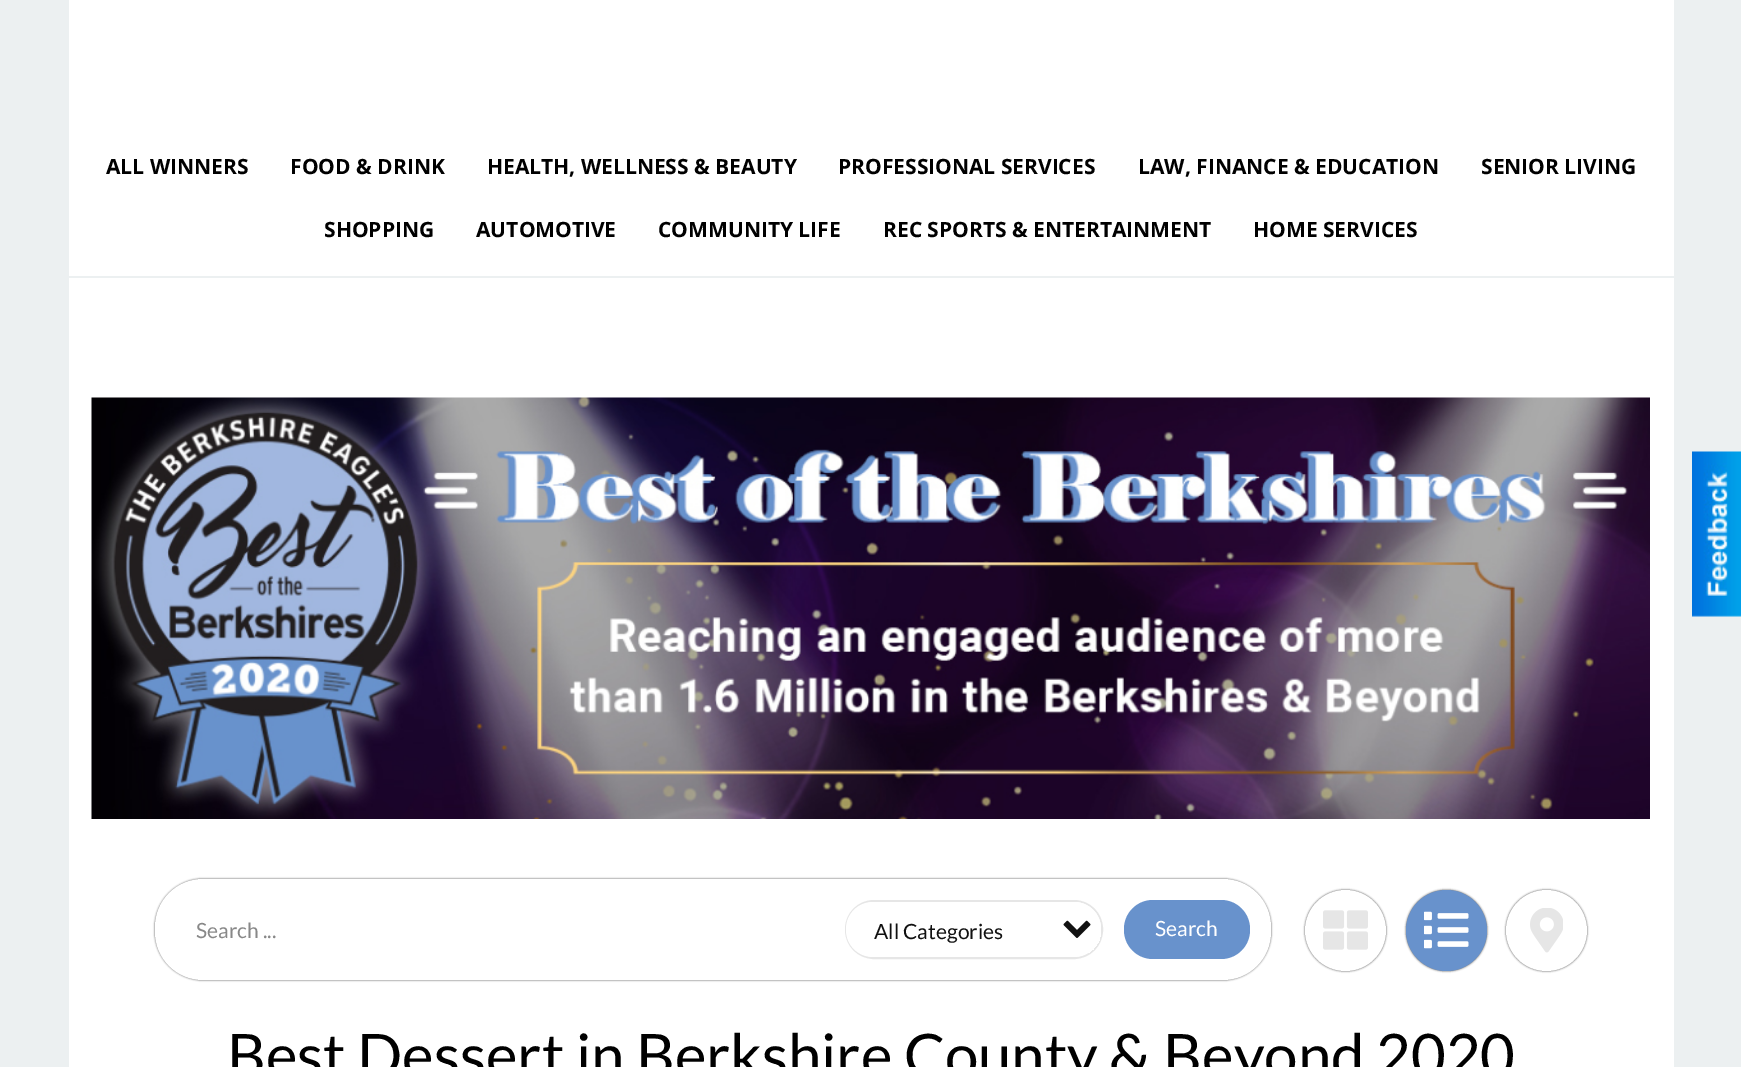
%!PS-Adobe-3.0
%%BoundingBox: 0 0 1741 1067
%%LanguageLevel: 3
%%Pages: 1
%%EndComments
%%BeginProlog
/setink { dup -16 bitshift 255 div exch dup -8 bitshift 255 and 255 div exch 255 and 255 div setrgbcolor } def
/usefont { [ exch dup neg 0 0 3 -1 roll 0 0 ] selectfont } def
/setalpha { dup .setfillconstantalpha .setstrokeconstantalpha } def
/disc { newpath 0 360 arc closepath } def
/rrect { 5 dict begin { /r /h /w /y /x } { exch def } forall
  x r add y moveto x w add y 2 copy h add r arct x w add y h add x 1 index r arct
  x y h add x y r arct x y 2 copy exch w add exch r arct closepath end } def
/softshadow { 12 dict begin { /a /b /q /h /w /y /x } { exch def } forall gsave /was 0 def
  9 -2 -9 { dup b mul 4 div /e exch def 1 sub .425 mul 2.718 exch exp 1 add a .99 .min exch div /now exch def
    1 1 now sub 1 was sub div sub setalpha /was now def
    w h .min e 2 mul add 0 gt { x e sub y e sub w e 2 mul add h e 2 mul add
      q e add b .6 mul add w h .min 2 div e add .min 0 .max rrect fill } if } for grestore end } def
/drawimage { 5 dict begin { /h /w /y /x /name } { exch def } forall
  gsave x y translate w h scale
  w h 8 [w 0 0 h 0 0] name (r) file false 3 colorimage grestore end } def
%%EndProlog
%%BeginSetup
<< /PageSize [1741 1067] /PageUsesTransparency true >> setpagedevice
%%EndSetup
%%Page: 1 1
0 .pushpdf14devicefilter
0 1067 translate 1 -1 scale
4 setmiterlimit
16#ECF0F1 setink
0 0 1741 1067 rectfill
16#FFFFFF setink
69 0 1605 1067 rectfill
16#ECF0F1 setink
69 276 1605 2 rectfill
/OpenSans-Bold 21 usefont
16#000000 setink
[
    [(ALL WINNERS) 106 174]
    [(FOOD & DRINK) 290 174]
    [(HEALTH, WELLNESS & BEAUTY) 487 174]
    [(PROFESSIONAL SERVICES) 838 174]
    [(LAW, FINANCE & EDUCATION) 1138 174]
    [(SENIOR LIVING) 1481 174]
    [(SHOPPING) 324 237]
    [(AUTOMOTIVE) 476 237]
    [(COMMUNITY LIFE) 658 237]
    [(REC SPORTS & ENTERTAINMENT) 883 237]
    [(HOME SERVICES) 1253 237]
] { aload pop moveto show } forall
(img1.raw) 91 397 1559 422 drawimage
155 879 1116 101 48 1 0.75 softshadow
16#FFFFFF setink
155 879 1116 101 48 rrect fill
/Lato-Regular 21 usefont
16#888888 setink
196 938 moveto (Search ...) show
16#E6E6E6 setink
2 setlinewidth
846 901 256 57 28 rrect stroke
16#FFFFFF setink
846 902 255 55 27 rrect fill
16#111111 setink
874 939 moveto (All Categories) show
gsave
846 902 255 55 27 rrect clip newpath
16#FFFFFF setink
1053 902 moveto 1074 902 lineto 1089 902 1101 914 1101 929 curveto 1101 953 lineto 1053 953 lineto closepath fill
grestore
(img2.raw) 1063 920 28 18 drawimage
16#6892CC setink
1124 900 126 59 29 rrect fill
16#FFFFFF setink
1155 936 moveto (Search) show
16#000000 setink
1305 890 81 81 40.5 1 0.75 softshadow
16#FFFFFF setink
1345.5 930.5 40.5 disc fill
(img3.raw) 1323 910 45 40 drawimage
16#000000 setink
1406 890 81 81 40.5 1 0.75 softshadow
16#6892CC setink
1446.5 930.5 40.5 disc fill
(img4.raw) 1424 911 45 38 drawimage
16#000000 setink
1506 890 81 81 40.5 1 0.75 softshadow
16#FFFFFF setink
1546.5 930.5 40.5 disc fill
(img5.raw) 1530 908 33 45 drawimage
/Lato-Regular 60 usefont
16#000000 setink
227 1077 moveto (Best Dessert in Berkshire County & Beyond 2020) show
(img6.raw) 1692 451 49 166 drawimage
.poppdf14devicefilter showpage
%%EOF
